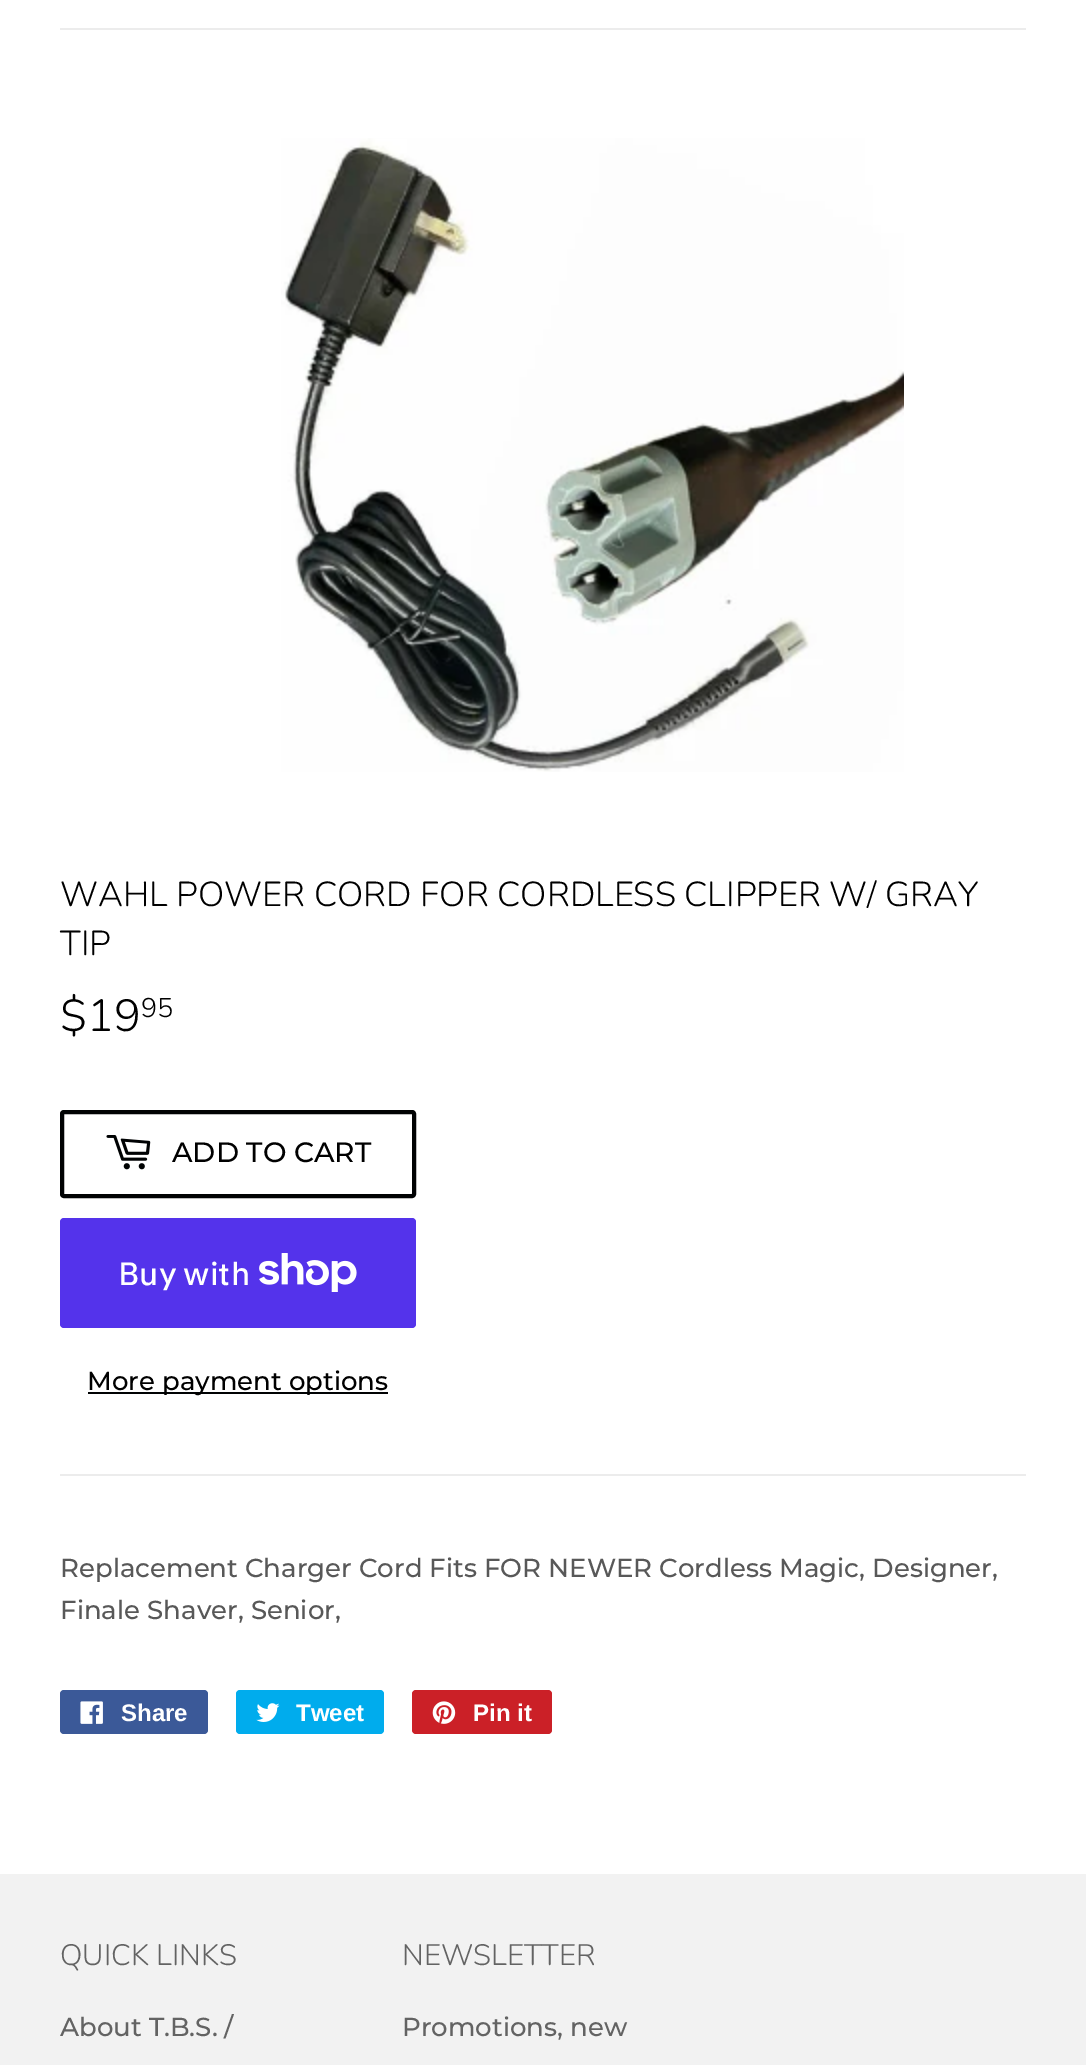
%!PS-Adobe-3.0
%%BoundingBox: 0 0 1086 2065
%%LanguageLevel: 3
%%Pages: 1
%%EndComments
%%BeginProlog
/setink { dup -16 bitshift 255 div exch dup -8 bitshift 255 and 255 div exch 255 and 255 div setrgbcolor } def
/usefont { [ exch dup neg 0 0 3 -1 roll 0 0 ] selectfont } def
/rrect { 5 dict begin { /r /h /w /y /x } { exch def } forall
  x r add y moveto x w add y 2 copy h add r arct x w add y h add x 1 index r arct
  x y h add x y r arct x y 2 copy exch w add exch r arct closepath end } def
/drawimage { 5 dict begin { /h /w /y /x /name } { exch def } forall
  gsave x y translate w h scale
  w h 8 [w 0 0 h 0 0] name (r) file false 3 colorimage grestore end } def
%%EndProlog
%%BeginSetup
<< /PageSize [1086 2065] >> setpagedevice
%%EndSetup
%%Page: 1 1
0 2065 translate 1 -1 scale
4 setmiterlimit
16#FFFFFF setink
0 0 1086 2065 rectfill
16#ECECEC setink
60 28 966 2 rectfill
(img1.raw) 281 138 623 634 drawimage
/Nunito-Light 34.65 usefont
16#000000 setink
60 906 moveto (WAHL POWER CORD FOR CORDLESS CLIPPER W/ GRAY) show
60 955 moveto (TIP) show
/Nunito-Light 45 usefont
60 1031 moveto ($19) show
/Nunito-Light 27 usefont
141 1017 moveto (95) show
16#000203 setink
4 setlinewidth
62 1112 352 84 2 rrect stroke
(img2.raw) 106 1135 45 35 drawimage
/Montserrat-Medium 28 usefont
16#000000 setink
172 1162 moveto (ADD TO CART) show
16#5433EB setink
60 1218 356 110 4 rrect fill
/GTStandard-Medium 32 usefont
16#FFFFFF setink
118 1285 moveto (Buy with) show
(img3.raw) 259 1253 98 39 drawimage
16#000203 setink
88 1392 300 2 rectfill
/Montserrat-Medium 26 usefont
16#000000 setink
87 1390 moveto (More payment options) show
16#ECECEC setink
60 1474 966 2 rectfill
16#585858 setink
60 1577 moveto (Replacement Charger Cord Fits FOR NEWER Cordless Magic, Designer,) show
60 1619 moveto (Finale Shaver, Senior,) show
16#3B5998 setink
60 1690 148 44 4 rrect fill
(img4.raw) 80 1701 23 23 drawimage
/LiberationSans-Bold 24 usefont
16#FFFFFF setink
121 1721 moveto (Share) show
16#00ACED setink
236 1690 148 44 4 rrect fill
(img5.raw) 256 1703 24 19 drawimage
16#FFFFFF setink
296 1721 moveto (Tweet) show
16#CB2027 setink
412 1690 140 44 4 rrect fill
(img6.raw) 432 1701 24 23 drawimage
16#FFFFFF setink
473 1721 moveto (Pin it) show
16#F2F2F2 setink
0 1874 1086 191 rectfill
/Nunito-Light 29.5 usefont
16#636363 setink
60 1965 moveto (QUICK LINKS) show
/Montserrat-Medium 26 usefont
60 2036 moveto (About T.B.S. /) show
/Nunito-Light 29.5 usefont
402 1965 moveto (NEWSLETTER) show
/Montserrat-Medium 26 usefont
402 2036 moveto (Promotions, new) show
showpage
%%EOF
